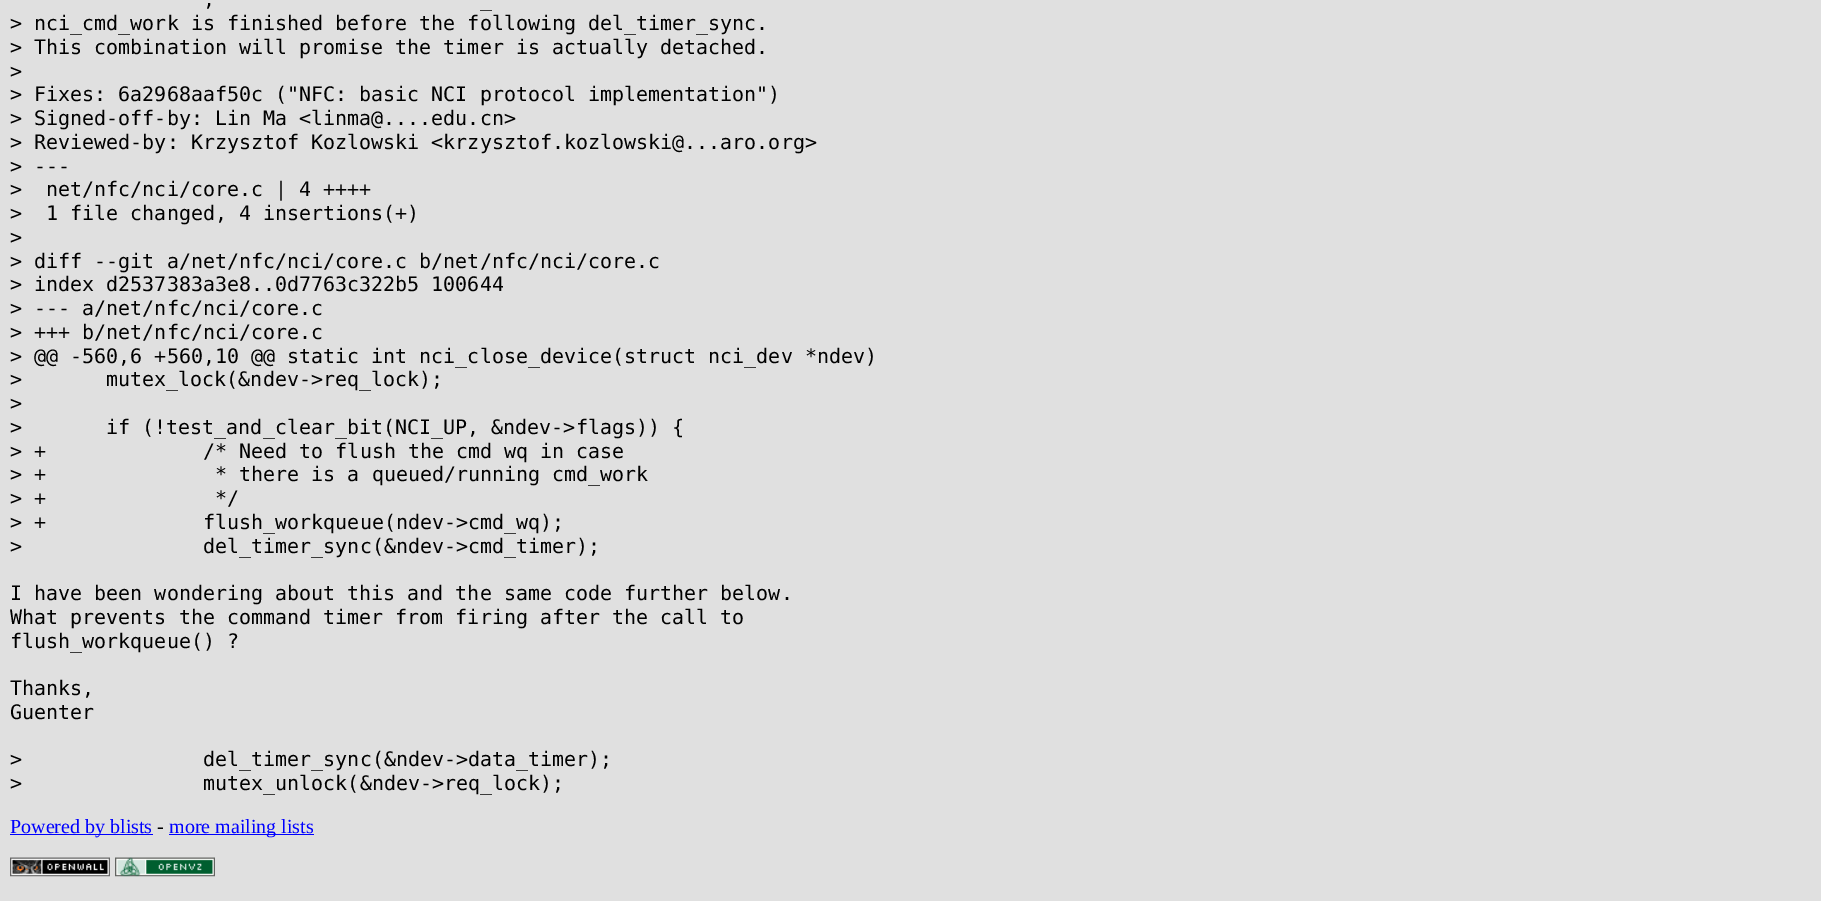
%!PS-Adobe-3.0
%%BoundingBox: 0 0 1821 901
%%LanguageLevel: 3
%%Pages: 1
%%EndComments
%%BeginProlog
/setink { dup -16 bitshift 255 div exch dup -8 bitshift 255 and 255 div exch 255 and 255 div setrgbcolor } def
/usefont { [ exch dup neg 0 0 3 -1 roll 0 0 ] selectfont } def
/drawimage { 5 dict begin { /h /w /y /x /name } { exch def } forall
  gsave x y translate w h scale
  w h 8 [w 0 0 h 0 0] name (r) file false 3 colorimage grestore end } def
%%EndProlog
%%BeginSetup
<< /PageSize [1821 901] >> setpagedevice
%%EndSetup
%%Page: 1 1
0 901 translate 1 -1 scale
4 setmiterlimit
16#E0E0E0 setink
0 0 1821 901 rectfill
/DejaVuSansMono-Regular 20 usefont
16#000000 setink
[
    [(,) 203 6]
    [(_) 480 6]
    [(> nci_cmd_work is finished before the following del_timer_sync.) 10 30]
    [(> This combination will promise the timer is actually detached.) 10 54]
    [(>) 10 78]
    [(> Fixes: 6a2968aaf50c \("NFC: basic NCI protocol implementation"\)) 10 101]
    [(> Signed-off-by: Lin Ma <linma@....edu.cn>) 10 125]
    [(> Reviewed-by: Krzysztof Kozlowski <krzysztof.kozlowski@...aro.org>) 10 149]
    [(> ---) 10 173]
    [(>  net/nfc/nci/core.c | 4 ++++) 10 196]
    [(>  1 file changed, 4 insertions\(+\)) 10 220]
    [(>) 10 244]
    [(> diff --git a/net/nfc/nci/core.c b/net/nfc/nci/core.c) 10 268]
    [(> index d2537383a3e8..0d7763c322b5 100644) 10 291]
    [(> --- a/net/nfc/nci/core.c) 10 315]
    [(> +++ b/net/nfc/nci/core.c) 10 339]
    [(> @@ -560,6 +560,10 @@ static int nci_close_device\(struct nci_dev *ndev\)) 10 363]
    [(>) 10 386]
    [(mutex_lock\(&ndev->req_lock\);) 106 386]
    [(>) 10 410]
    [(>) 10 434]
    [(if \(!test_and_clear_bit\(NCI_UP, &ndev->flags\)\) {) 106 434]
    [(> +) 10 458]
    [(/* Need to flush the cmd wq in case) 203 458]
    [(> +) 10 481]
    [(* there is a queued/running cmd_work) 215 481]
    [(> +) 10 505]
    [(*/) 215 505]
    [(> +) 10 529]
    [(flush_workqueue\(ndev->cmd_wq\);) 203 529]
    [(>) 10 553]
    [(del_timer_sync\(&ndev->cmd_timer\);) 203 553]
    [(I have been wondering about this and the same code further below.) 10 600]
    [(What prevents the command timer from firing after the call to) 10 624]
    [(flush_workqueue\(\) ?) 10 648]
    [(Thanks,) 10 695]
    [(Guenter) 10 719]
    [(>) 10 766]
    [(del_timer_sync\(&ndev->data_timer\);) 203 766]
    [(>) 10 790]
    [(mutex_unlock\(&ndev->req_lock\);) 203 790]
] { aload pop moveto show } forall
16#0000FF setink
10 834 143 1 rectfill
/LiberationSerif-Regular 20 usefont
10 833 moveto (Powered by blists) show
16#000000 setink
157 833 moveto (-) show
16#0000FF setink
169 834 145 1 rectfill
169 833 moveto (more mailing lists) show
(img1.raw) 10 857 100 20 drawimage
(img2.raw) 115 857 100 20 drawimage
showpage
%%EOF
